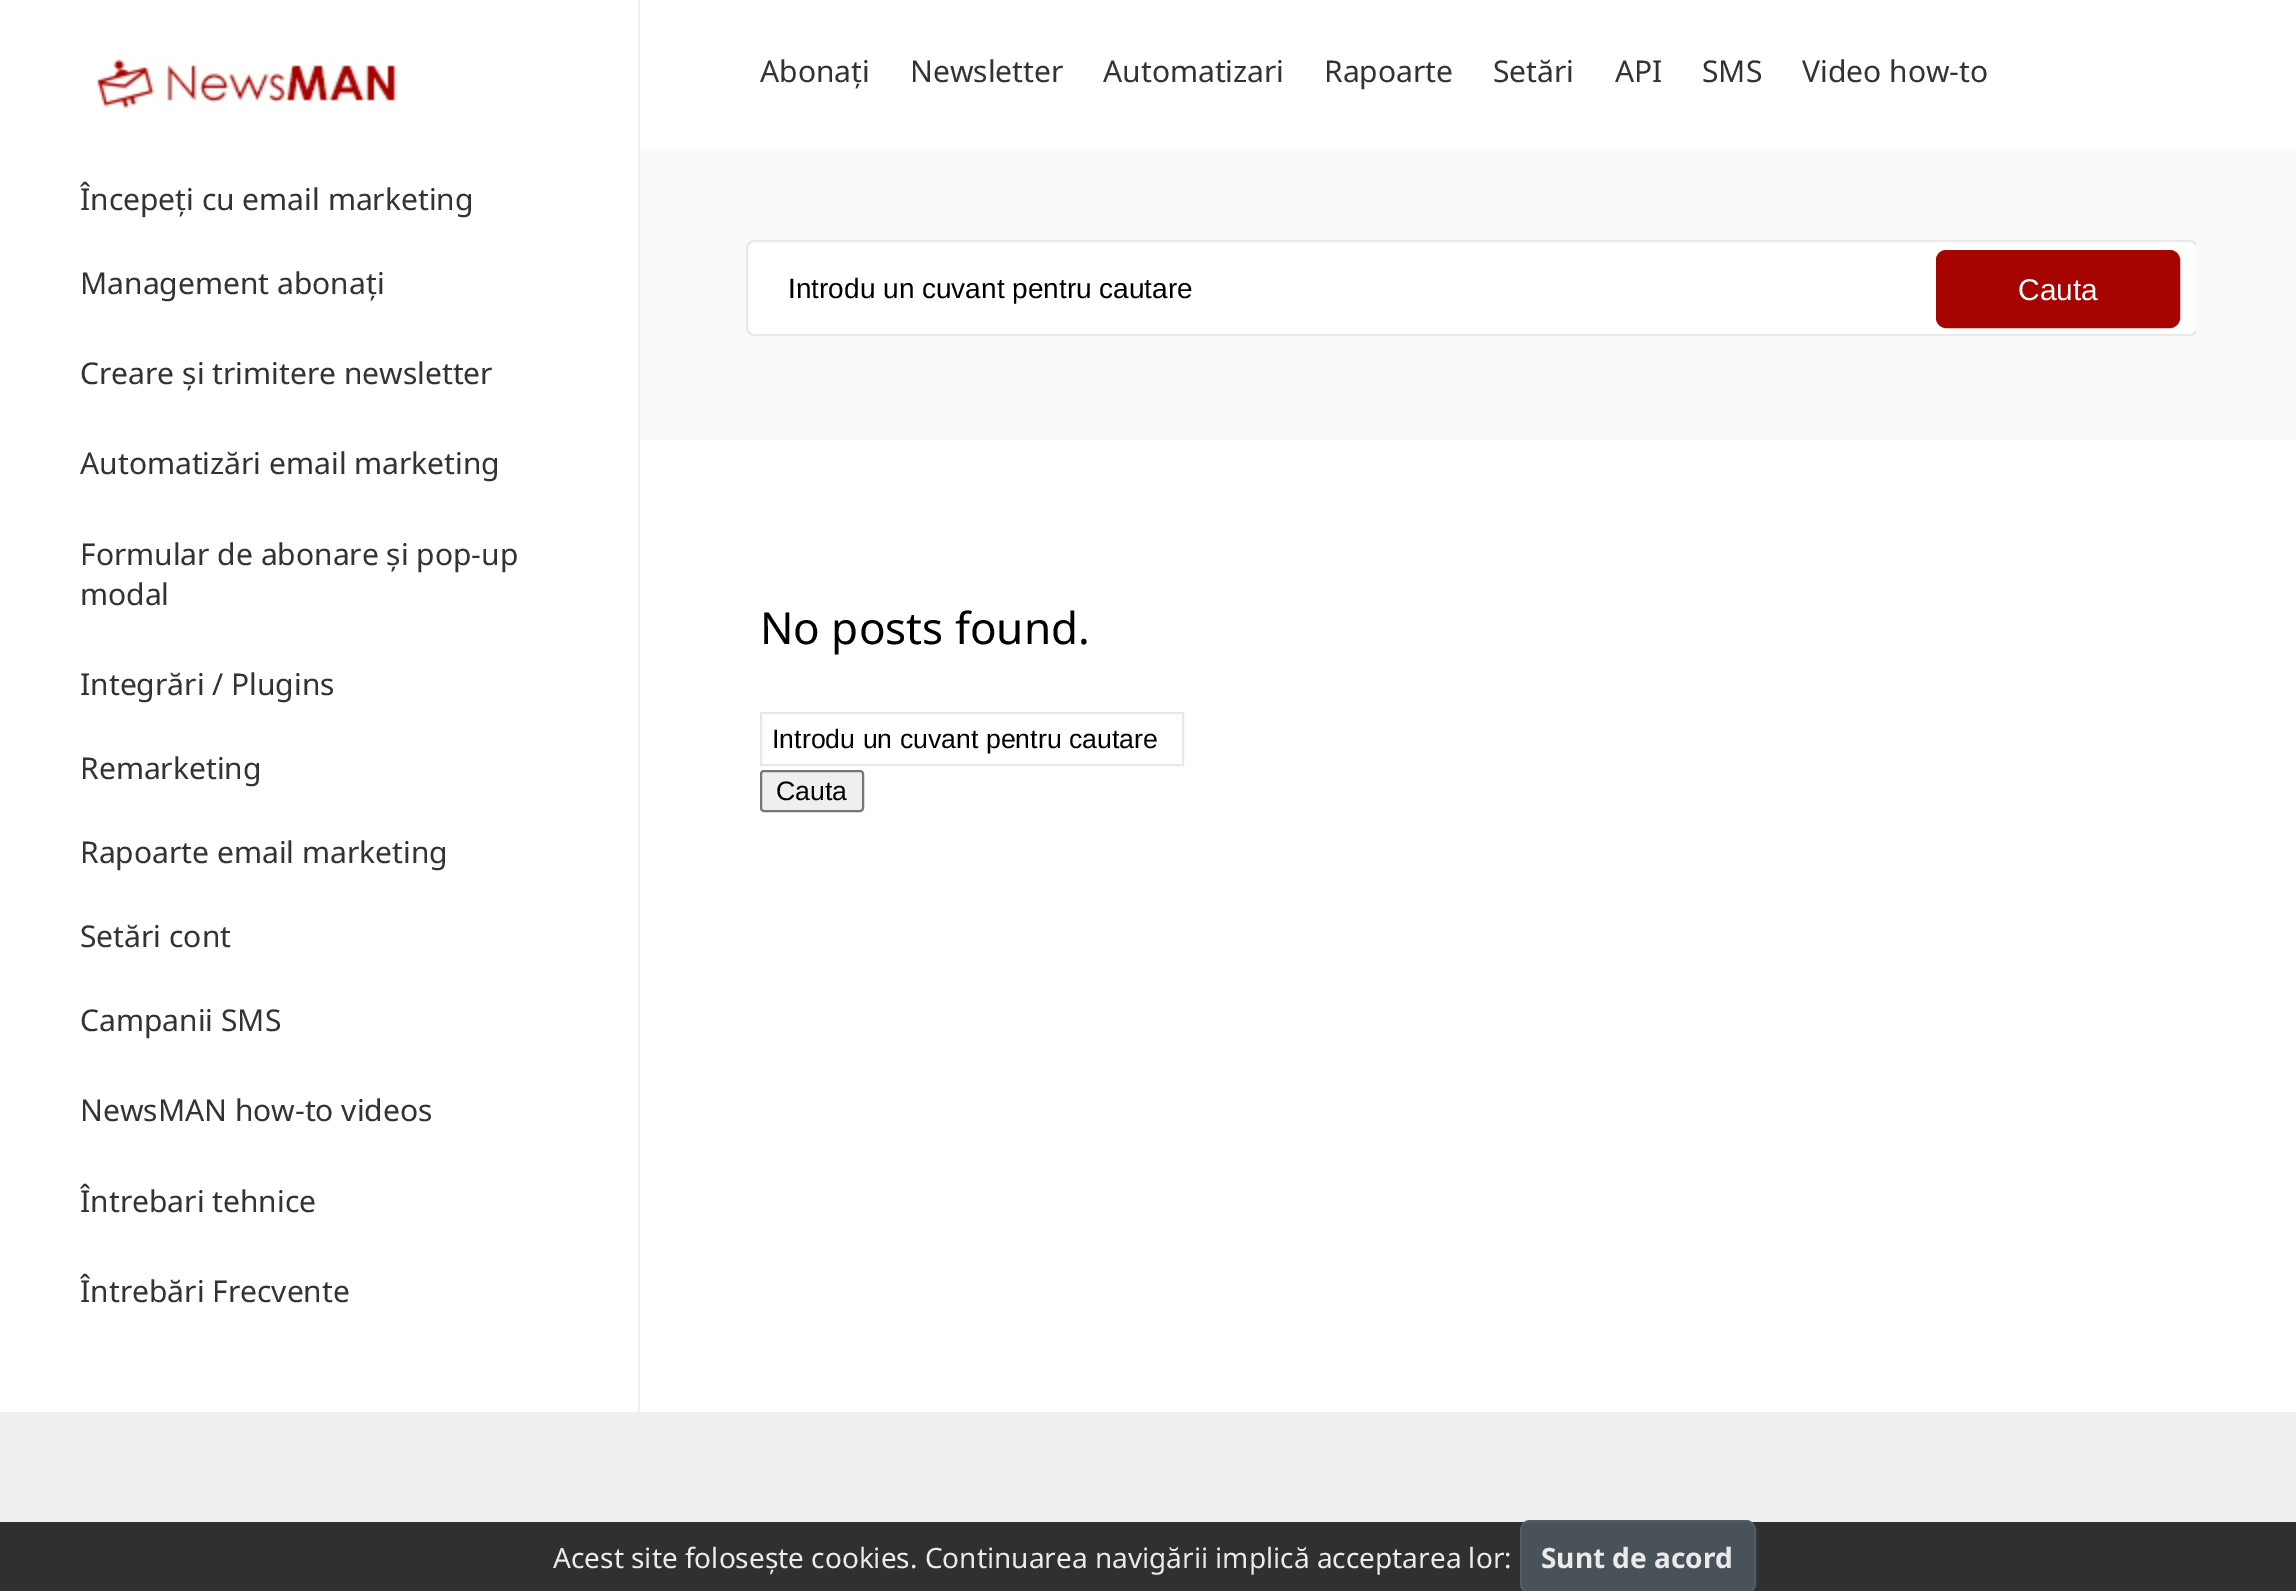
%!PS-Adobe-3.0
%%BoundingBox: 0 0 2296 1591
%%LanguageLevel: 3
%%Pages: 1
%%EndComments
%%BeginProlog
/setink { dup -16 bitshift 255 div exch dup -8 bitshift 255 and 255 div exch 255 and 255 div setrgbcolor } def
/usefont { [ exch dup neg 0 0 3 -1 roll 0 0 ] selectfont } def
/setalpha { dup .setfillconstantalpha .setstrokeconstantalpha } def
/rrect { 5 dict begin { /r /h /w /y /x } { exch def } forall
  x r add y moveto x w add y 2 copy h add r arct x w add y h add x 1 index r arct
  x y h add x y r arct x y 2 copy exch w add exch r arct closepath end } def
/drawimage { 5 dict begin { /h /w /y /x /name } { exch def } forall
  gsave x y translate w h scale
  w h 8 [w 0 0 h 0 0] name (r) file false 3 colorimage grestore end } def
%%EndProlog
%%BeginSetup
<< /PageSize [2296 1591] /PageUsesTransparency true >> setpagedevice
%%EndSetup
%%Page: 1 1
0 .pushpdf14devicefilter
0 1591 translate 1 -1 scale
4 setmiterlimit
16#FFFFFF setink
0 0 2296 1591 rectfill
16#EFEFEF setink
638 0 2 1412 rectfill
(img1.raw) 97 59 300 50 drawimage
/NotoSans-Regular 30 usefont
16#333333 setink
[
    [(Începeți cu email marketing) 80 210]
    [(Management abonați) 80 294]
    [(Creare și trimitere newsletter) 80 384]
    [(Automatizări email marketing) 80 474]
    [(Formular de abonare și pop-up) 80 565]
    [(modal) 80 605]
    [(Integrări / Plugins) 80 695]
    [(Remarketing) 80 779]
    [(Rapoarte email marketing) 80 863]
    [(Setări cont) 80 947]
    [(Campanii SMS) 80 1031]
    [(NewsMAN how-to videos) 80 1121]
    [(Întrebari tehnice) 80 1212]
    [(Întrebări Frecvente) 80 1302]
    [(Abonați) 760 82]
    [(Newsletter) 910 82]
    [(Automatizari) 1103 82]
    [(Rapoarte) 1324 82]
    [(Setări) 1493 82]
    [(API) 1615 82]
    [(SMS) 1702 82]
    [(Video how-to) 1802 82]
] { aload pop moveto show } forall
16#FAFAFA setink
640 150 1656 290 rectfill
gsave
740 240 1456 96 rectclip
16#FFFFFF setink
747 241 1450 94 7 rrect gsave fill grestore
16#E9E9E9 setink
2 setlinewidth
stroke
grestore
/LiberationSans-Regular 28 usefont
16#000000 setink
788 298 moveto (Introdu un cuvant pentru cautare) show
16#A60400 setink
1937 251 242 76 9 rrect gsave fill grestore
2 setlinewidth
stroke
/LiberationSans-Regular 30 usefont
16#FFFFFF setink
2018 300 moveto (Cauta) show
/NotoSans-Regular 44 usefont
16#000000 setink
760 644 moveto (No posts found.) show
16#E8E8E8 setink
761 713 422 52 rectstroke
/LiberationSans-Regular 26.7 usefont
16#000000 setink
772 748 moveto (Introdu un cuvant pentru cautare) show
16#EFEFEF setink
761 771 102 40 3 rrect gsave fill grestore
16#767676 setink
stroke
16#000000 setink
776 800 moveto (Cauta) show
16#EFEFEF setink
0 1412 2296 179 rectfill
0.8 setalpha
16#000000 setink
0 1522 2296 69 rectfill
/NotoSans-Regular 28 usefont
1 setalpha
16#EBEBEB setink
553 1568 moveto (Acest site folosește cookies. Continuarea navigării implică acceptarea lor:) show
16#495159 setink
1521 1521 234 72 9 rrect gsave fill grestore
16#515C62 setink
stroke
/NotoSans-Bold 28 usefont
16#EBEBEB setink
1541 1568 moveto (Sunt de acord) show
.poppdf14devicefilter showpage
%%EOF
